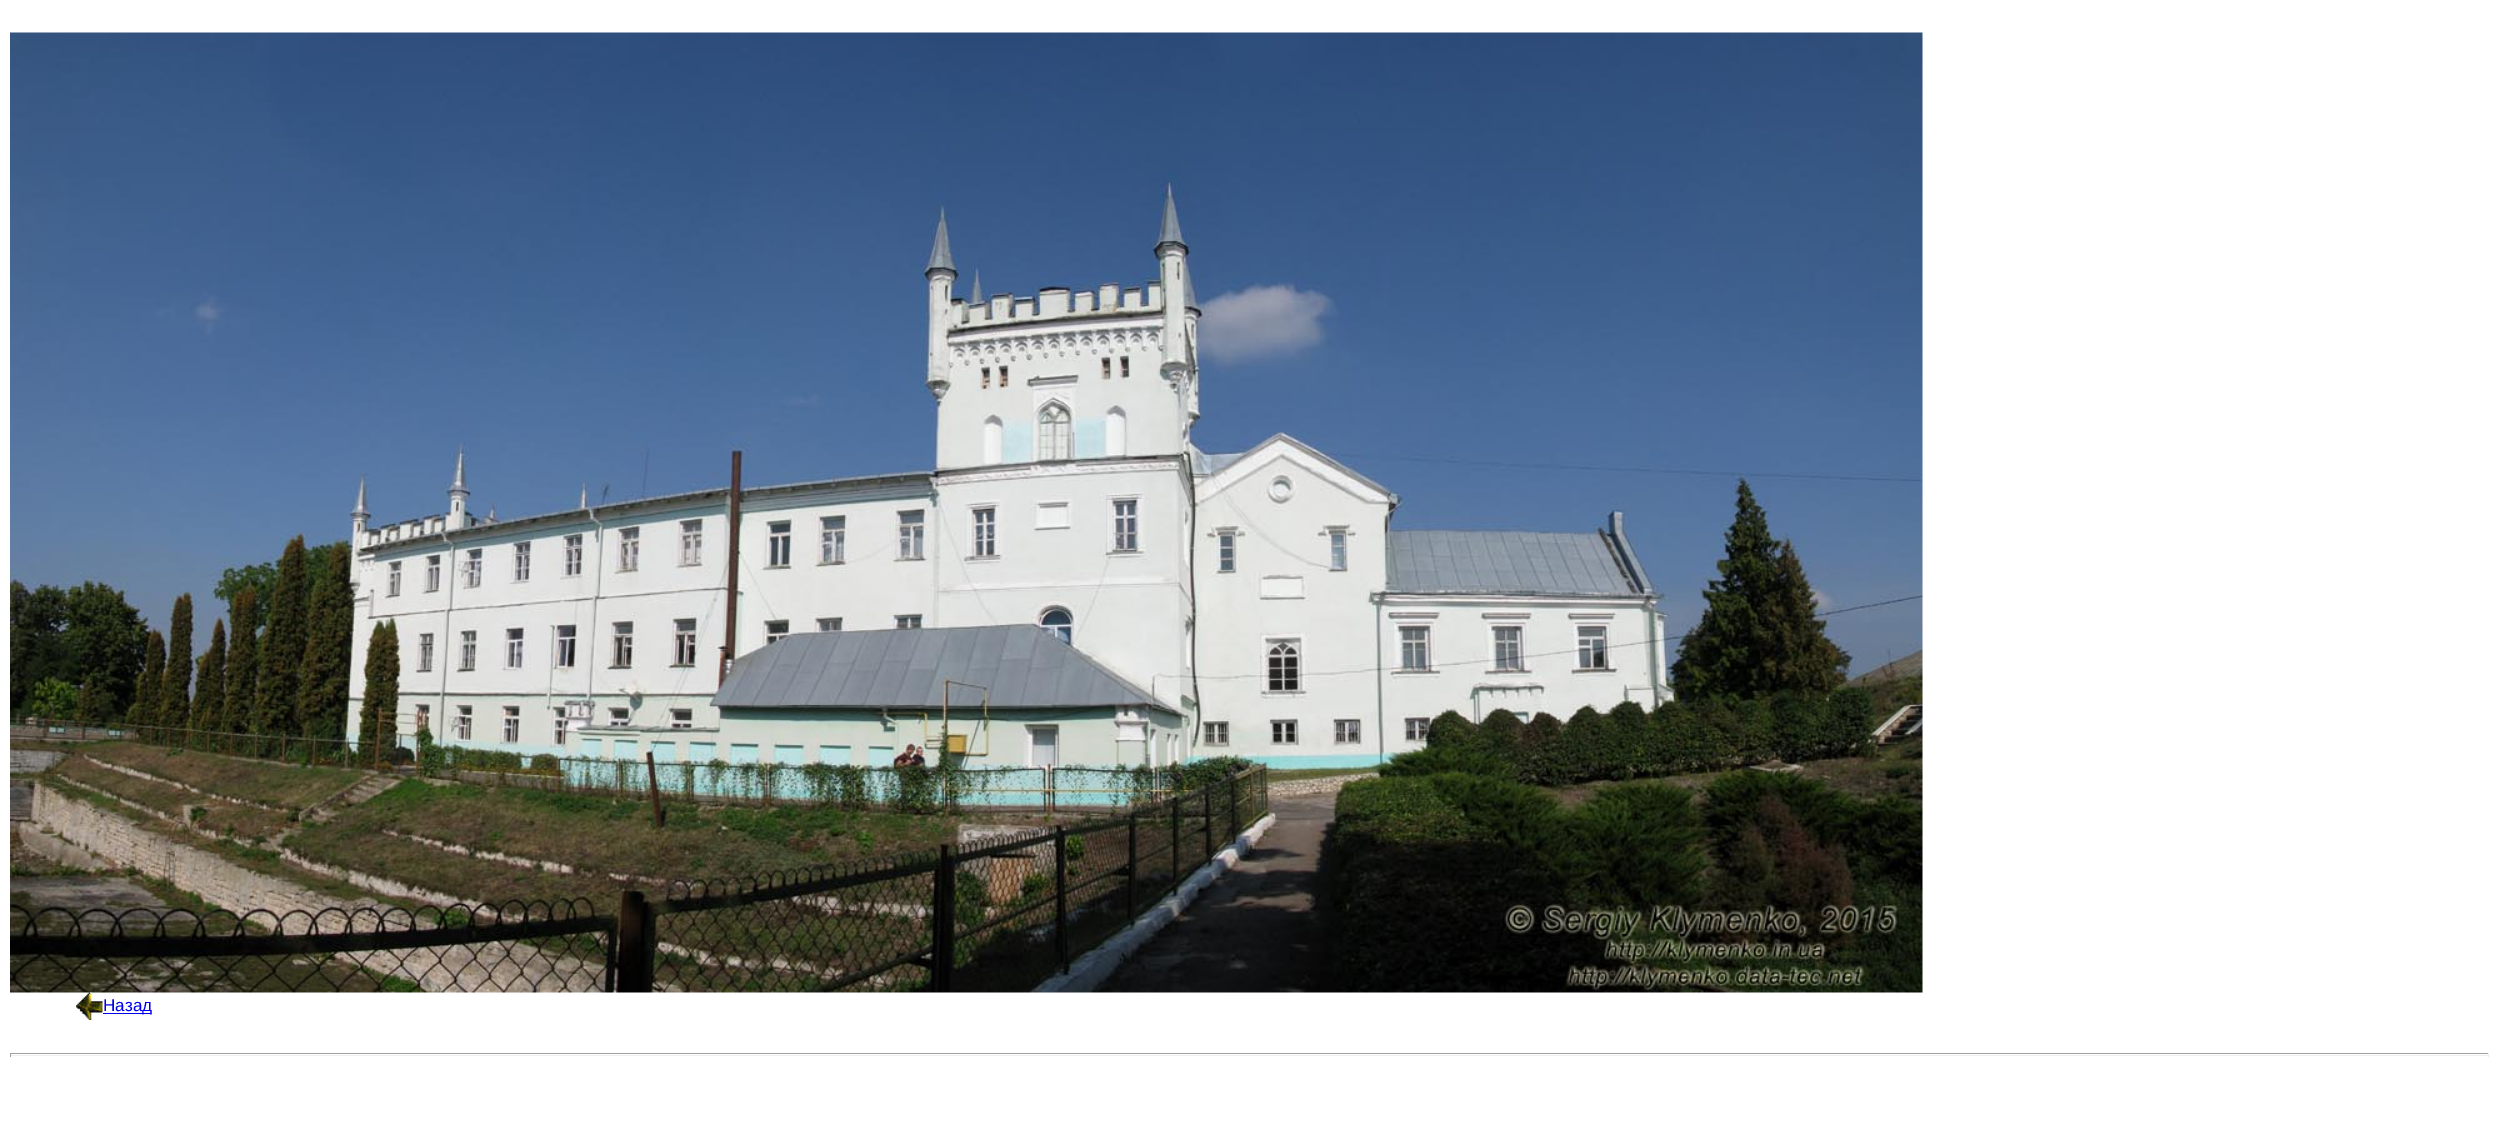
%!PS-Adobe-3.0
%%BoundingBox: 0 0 2498 1121
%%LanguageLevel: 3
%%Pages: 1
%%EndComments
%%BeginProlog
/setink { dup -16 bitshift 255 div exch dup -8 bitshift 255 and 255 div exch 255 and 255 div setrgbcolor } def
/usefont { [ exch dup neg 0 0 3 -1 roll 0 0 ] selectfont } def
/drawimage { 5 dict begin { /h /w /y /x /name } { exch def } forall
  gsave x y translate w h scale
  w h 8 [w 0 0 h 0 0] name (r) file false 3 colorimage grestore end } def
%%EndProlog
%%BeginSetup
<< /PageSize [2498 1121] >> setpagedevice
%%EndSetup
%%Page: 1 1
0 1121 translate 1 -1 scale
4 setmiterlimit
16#FFFFFF setink
0 0 2498 1121 rectfill
(img1.raw) 10 32 1913 961 drawimage
(img2.raw) 76 992 27 28 drawimage
16#0000EE setink
103 1013 48 1 rectfill
/LiberationSans-Regular 17 usefont
103 1011 moveto (Назад) show
[
    [10 1053 2479 1 16#9F9F9F]
    [2488 1053 1 4 16#EEEEEE]
    [10 1055 2479 1 16#EEEEEE]
    [10 1053 1 4 16#9F9F9F]
] { aload pop setink rectfill } forall
showpage
%%EOF
